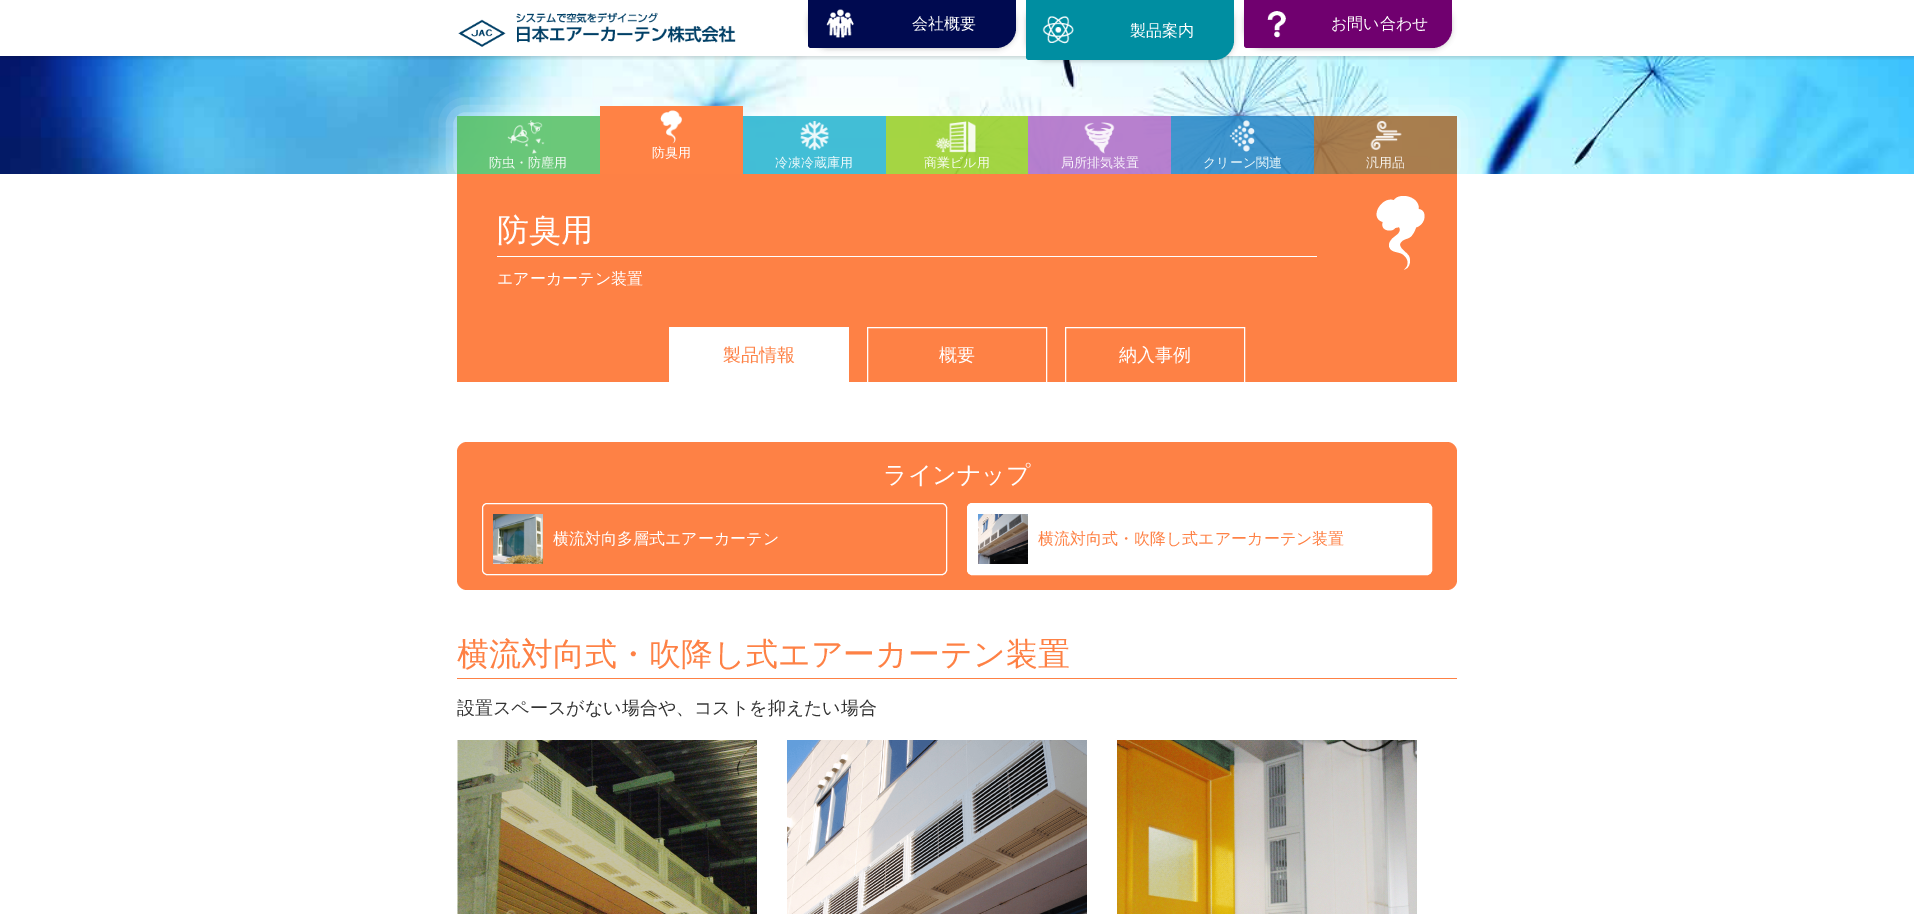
%!PS-Adobe-3.0
%%BoundingBox: 0 0 1914 914
%%LanguageLevel: 3
%%Pages: 1
%%EndComments
%%BeginProlog
/setink { dup -16 bitshift 255 div exch dup -8 bitshift 255 and 255 div exch 255 and 255 div setrgbcolor } def
/usefont { [ exch dup neg 0 0 3 -1 roll 0 0 ] selectfont } def
/setalpha { dup .setfillconstantalpha .setstrokeconstantalpha } def
/rrect { 5 dict begin { /r /h /w /y /x } { exch def } forall
  x r add y moveto x w add y 2 copy h add r arct x w add y h add x 1 index r arct
  x y h add x y r arct x y 2 copy exch w add exch r arct closepath end } def
/softshadow { 12 dict begin { /a /b /q /h /w /y /x } { exch def } forall gsave /was 0 def
  9 -2 -9 { dup b mul 4 div /e exch def 1 sub .425 mul 2.718 exch exp 1 add a .99 .min exch div /now exch def
    1 1 now sub 1 was sub div sub setalpha /was now def
    w h .min e 2 mul add 0 gt { x e sub y e sub w e 2 mul add h e 2 mul add
      q e add b .6 mul add w h .min 2 div e add .min 0 .max rrect fill } if } for grestore end } def
/drawimage { 5 dict begin { /h /w /y /x /name } { exch def } forall
  gsave x y translate w h scale
  w h 8 [w 0 0 h 0 0] name (r) file false 3 colorimage grestore end } def
%%EndProlog
%%BeginSetup
<< /PageSize [1914 914] /PageUsesTransparency true >> setpagedevice
%%EndSetup
%%Page: 1 1
0 .pushpdf14devicefilter
0 914 translate 1 -1 scale
4 setmiterlimit
16#FFFFFF setink
0 0 1914 914 rectfill
(img5.raw) 0 56 1914 118 drawimage
gsave
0 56 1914 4 rectclip
16#000000 setink
0 1 1914 56 0 2.5 0.2 softshadow
grestore
(img1.raw) 458 12 278 35 drawimage
16#000000 setink
808 1 208 48 20 2.5 0.2 softshadow
16#000A50 setink
808 0 moveto 1016 0 lineto 1016 28 lineto 1016 39 1007 48 996 48 curveto 811 48 lineto 809.5 48 808 46.5 808 45 curveto closepath fill
(img2.raw) 826 9 28 29 drawimage
/WenQuanYiZenHei-Medium 16 usefont
16#FFFFFF setink
912 29 moveto (会社概要) show
16#000000 setink
1026 1 208 60 20 2.5 0.2 softshadow
16#008EA1 setink
1026 0 moveto 1234 0 lineto 1234 40 lineto 1234 51 1225 60 1214 60 curveto 1029 60 lineto 1027.5 60 1026 58.5 1026 57 curveto closepath fill
(img3.raw) 1042 16 32 28 drawimage
16#FFFFFF setink
1130 36 moveto (製品案内) show
16#000000 setink
1244 1 208 48 20 2.5 0.2 softshadow
16#70006F setink
1244 0 moveto 1452 0 lineto 1452 28 lineto 1452 39 1443 48 1432 48 curveto 1247 48 lineto 1245.5 48 1244 46.5 1244 45 curveto closepath fill
(img4.raw) 1267 11 19 27 drawimage
16#FFFFFF setink
1331 29 moveto (お問い合わせ) show
gsave
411 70 moveto 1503 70 lineto 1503 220 lineto 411 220 lineto closepath 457 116 moveto 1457 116 lineto 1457 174 lineto 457 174 lineto closepath eoclip newpath
457 116 1000 58 0 15 0.8 softshadow
grestore
16#FF8245 setink
600 106 143 68 rectfill
(img6.raw) 660 110 22 34 drawimage
/WenQuanYiZenHei-Medium 13 usefont
16#FFFFFF setink
652 157 moveto (防臭用) show
0.9 setalpha
16#38B54A setink
457 116 143 58 rectfill
1 setalpha
(img7.raw) 507 120 38 34 drawimage
16#EDF8EF setink
489 167 moveto (防虫・防塵用) show
0.18 setalpha
16#FFFFFF setink
457 116 143 58 rectfill
0.9 setalpha
16#00A7C8 setink
743 116 143 58 rectfill
1 setalpha
(img8.raw) 800 121 29 29 drawimage
16#E8F7FA setink
775 167 moveto (冷凍冷蔵庫用) show
0.18 setalpha
16#FFFFFF setink
743 116 143 58 rectfill
0.9 setalpha
16#85C701 setink
886 116 142 58 rectfill
1 setalpha
(img9.raw) 935 121 41 32 drawimage
16#F4FAE8 setink
924 167 moveto (商業ビル用) show
0.18 setalpha
16#FFFFFF setink
886 116 142 58 rectfill
0.9 setalpha
16#9F53BD setink
1028 116 143 58 rectfill
1 setalpha
(img10.raw) 1084 122 31 32 drawimage
16#F6EFF9 setink
1061 167 moveto (局所排気装置) show
0.18 setalpha
16#FFFFFF setink
1028 116 143 58 rectfill
0.9 setalpha
16#0071BC setink
1171 116 143 58 rectfill
1 setalpha
(img11.raw) 1229 120 26 32 drawimage
16#E8F7FA setink
1203 167 moveto (クリーン関連) show
0.18 setalpha
16#FFFFFF setink
1171 116 143 58 rectfill
0.9 setalpha
16#8F5010 setink
1314 116 143 58 rectfill
1 setalpha
(img12.raw) 1370 120 32 30 drawimage
16#F5EFE9 setink
1366 167 moveto (汎用品) show
0.18 setalpha
16#FFFFFF setink
1314 116 143 58 rectfill
1 setalpha
16#FE8145 setink
457 174 1000 208 rectfill
(img13.raw) 1376 196 49 74 drawimage
16#FFFFFF setink
497 256 820 1 rectfill
/WenQuanYiZenHei-Medium 32 usefont
497 241 moveto (防臭用) show
/WenQuanYiZenHei-Medium 16 usefont
497 284 moveto (エアーカーテン装置) show
669 327 180 55 rectfill
/WenQuanYiZenHei-Medium 18 usefont
16#FE8145 setink
723 361 moveto (製品情報) show
16#FFFFFF setink
867.5 327.5 179 55 rectstroke
939 361 moveto (概要) show
1065.5 327.5 179 55 rectstroke
1119 361 moveto (納入事例) show
16#FE8145 setink
457 442 1000 148 10 rrect fill
/WenQuanYiZenHei-Medium 24 usefont
16#FFFFFF setink
883 483 moveto (ラインナップ) show
482.5 503.5 464 71 4.5 rrect stroke
(img14.raw) 493 514 50 50 drawimage
/WenQuanYiZenHei-Medium 16 usefont
553 544 moveto (横流対向多層式エアーカーテン) show
967.5 503.5 464 71 4.5 rrect gsave fill grestore
stroke
(img15.raw) 978 514 50 50 drawimage
16#FE8145 setink
1038 544 moveto (横流対向式・吹降し式エアーカーテン装置) show
457 678 1000 1 rectfill
/WenQuanYiZenHei-Medium 32 usefont
457 665 moveto (横流対向式・吹降し式エアーカーテン装置) show
/WenQuanYiZenHei-Medium 18 usefont
16#333333 setink
457 714 moveto (設置スペースがない場合や、コストを抑えたい場合) show
(img16.raw) 457 740 300 174 drawimage
(img17.raw) 787 740 300 174 drawimage
(img18.raw) 1117 740 300 174 drawimage
.poppdf14devicefilter showpage
%%EOF
